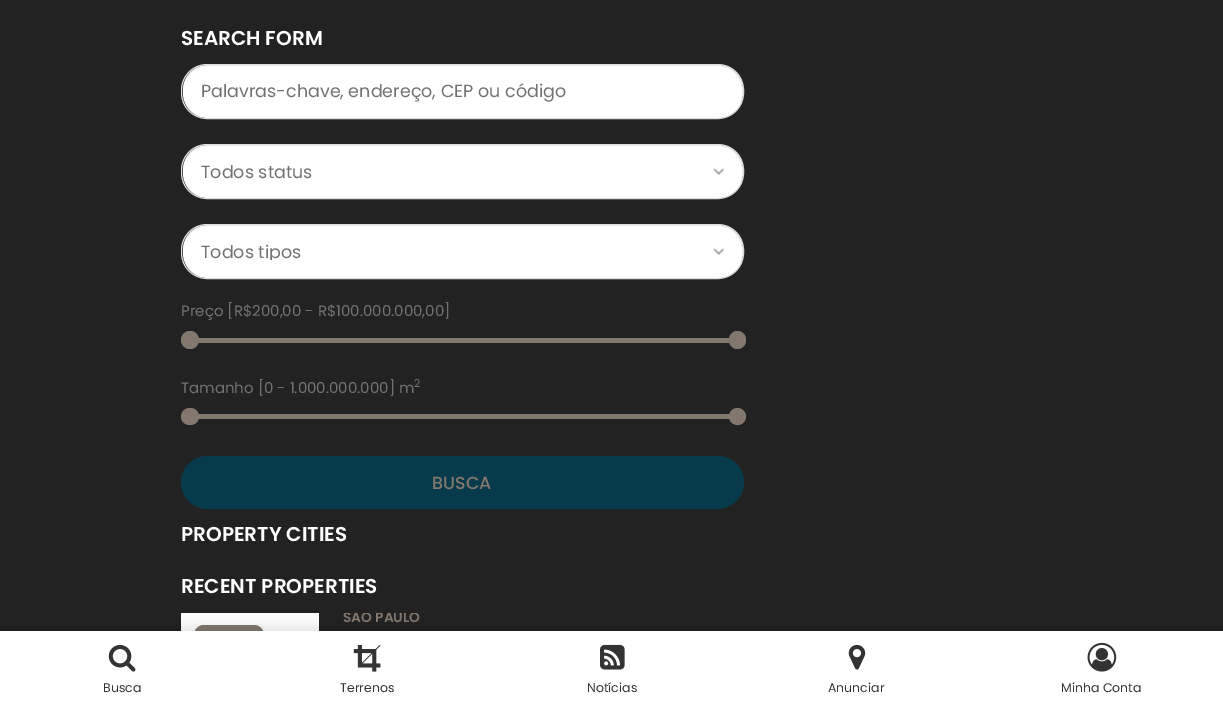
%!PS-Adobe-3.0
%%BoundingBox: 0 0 1223 710
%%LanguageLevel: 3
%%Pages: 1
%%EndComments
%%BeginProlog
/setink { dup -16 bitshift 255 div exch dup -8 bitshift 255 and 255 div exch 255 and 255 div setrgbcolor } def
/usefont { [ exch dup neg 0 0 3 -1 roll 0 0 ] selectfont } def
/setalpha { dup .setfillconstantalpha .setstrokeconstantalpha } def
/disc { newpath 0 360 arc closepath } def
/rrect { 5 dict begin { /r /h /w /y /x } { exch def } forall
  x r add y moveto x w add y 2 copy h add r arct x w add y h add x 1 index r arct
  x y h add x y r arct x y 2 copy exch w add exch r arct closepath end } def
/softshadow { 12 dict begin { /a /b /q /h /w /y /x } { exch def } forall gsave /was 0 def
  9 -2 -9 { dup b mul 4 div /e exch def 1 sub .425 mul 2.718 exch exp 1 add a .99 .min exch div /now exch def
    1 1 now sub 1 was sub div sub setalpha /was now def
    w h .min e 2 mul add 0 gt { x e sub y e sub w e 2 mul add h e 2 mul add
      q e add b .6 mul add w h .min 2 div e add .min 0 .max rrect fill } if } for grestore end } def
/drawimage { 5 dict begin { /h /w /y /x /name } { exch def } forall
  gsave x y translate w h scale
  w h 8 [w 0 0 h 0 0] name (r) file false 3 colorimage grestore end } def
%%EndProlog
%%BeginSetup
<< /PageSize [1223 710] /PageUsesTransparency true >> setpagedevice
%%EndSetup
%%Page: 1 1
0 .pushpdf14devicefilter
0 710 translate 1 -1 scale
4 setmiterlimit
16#222222 setink
0 0 1223 710 rectfill
/Poppins-SemiBold 20 usefont
16#FFFFFF setink
181 45 moveto (SEARCH FORM) show
183 65 560 53 25 rrect fill
0.07 setalpha
16#000000 setink
208 66 moveto 718 66 lineto 731 66 742 77 742 91 curveto 742 94 lineto 742 100 740 105 737 109 curveto 751 93 741 65 718 65 curveto 205 65 lineto 198 66 192 70 188 76 curveto 192 70 200 66 208 66 curveto closepath fill
1 setalpha
16#DEDEDE setink
181.5 64.5 562 54 25.5 rrect stroke
/Poppins-Regular 17.5 usefont
16#727272 setink
201 97 moveto (Palavras-chave, endereço, CEP ou código) show
16#FFFFFF setink
183 145 560 53 25 rrect fill
(img1.raw) 713 168 11 7 drawimage
0.07 setalpha
16#000000 setink
208 146 moveto 718 146 lineto 731 146 742 157 742 171 curveto 742 174 lineto 742 180 740 185 737 189 curveto 751 173 741 145 718 145 curveto 205 145 lineto 198 146 192 150 188 156 curveto 192 150 200 146 208 146 curveto closepath fill
1 setalpha
16#DEDEDE setink
181.5 144.5 562 54 25.5 rrect stroke
16#727272 setink
201 178 moveto (Todos status) show
16#FFFFFF setink
183 225 560 53 25 rrect fill
(img1.raw) 713 248 11 7 drawimage
0.07 setalpha
16#000000 setink
208 226 moveto 718 226 lineto 731 226 742 237 742 251 curveto 742 254 lineto 742 260 740 265 737 269 curveto 751 253 741 225 718 225 curveto 205 225 lineto 198 226 192 230 188 236 curveto 192 230 200 226 208 226 curveto closepath fill
1 setalpha
16#DEDEDE setink
181.5 224.5 562 54 25.5 rrect stroke
gsave
201 243 519 17 rectclip
16#727272 setink
201 258 moveto (Todos tipos) show
grestore
/Poppins-Regular 15 usefont
16#727272 setink
181 316 moveto (Preço [R$200,00 - R$100.000.000,00]) show
16#82786E setink
191 338 539 5 rectfill
190 340 9 disc fill
729 331 17 18 8.5 rrect fill
16#727272 setink
181 393 moveto (Tamanho [0 - 1.000.000.000] m) show
/Poppins-Regular 11 usefont
414 387 moveto (2) show
16#82786E setink
191 414 539 5 rectfill
181 408 18 17 8.5 rrect fill
737.5 416.5 8.5 disc fill
16#073B4C setink
182.5 457.5 560 50 25 rrect gsave fill grestore
3 setlinewidth
stroke
/Poppins-Medium 17.5 usefont
16#82786E setink
432 489 moveto (BUSCA) show
/Poppins-SemiBold 20 usefont
16#FFFFFF setink
181 541 moveto (PROPERTY CITIES) show
181 593 moveto (RECENT PROPERTIES) show
181 613 138 18 rectfill
gsave
319 613 425 86 rectclip
/Poppins-SemiBold 13.75 usefont
16#82786E setink
343 622 moveto (SÃO PAULO) show
grestore
16#82786E setink
194 625 70 23 10 rrect fill
16#000000 setink
0 625 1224 79 0 6 0.1 softshadow
16#FFFFFF setink
0 631 1223 79 rectfill
(img2.raw) 108 644 28 28 drawimage
/Poppins-Regular 12.5 usefont
16#333333 setink
103 692 moveto (Busca) show
(img3.raw) 353 644 28 28 drawimage
340 692 moveto (Terrenos) show
(img4.raw) 600 644 25 26 drawimage
587 692 moveto (Notícias) show
(img5.raw) 848 644 18 26 drawimage
828 692 moveto (Anunciar) show
(img6.raw) 1087 642 30 30 drawimage
1061 692 moveto (Minha Conta) show
.poppdf14devicefilter showpage
%%EOF
